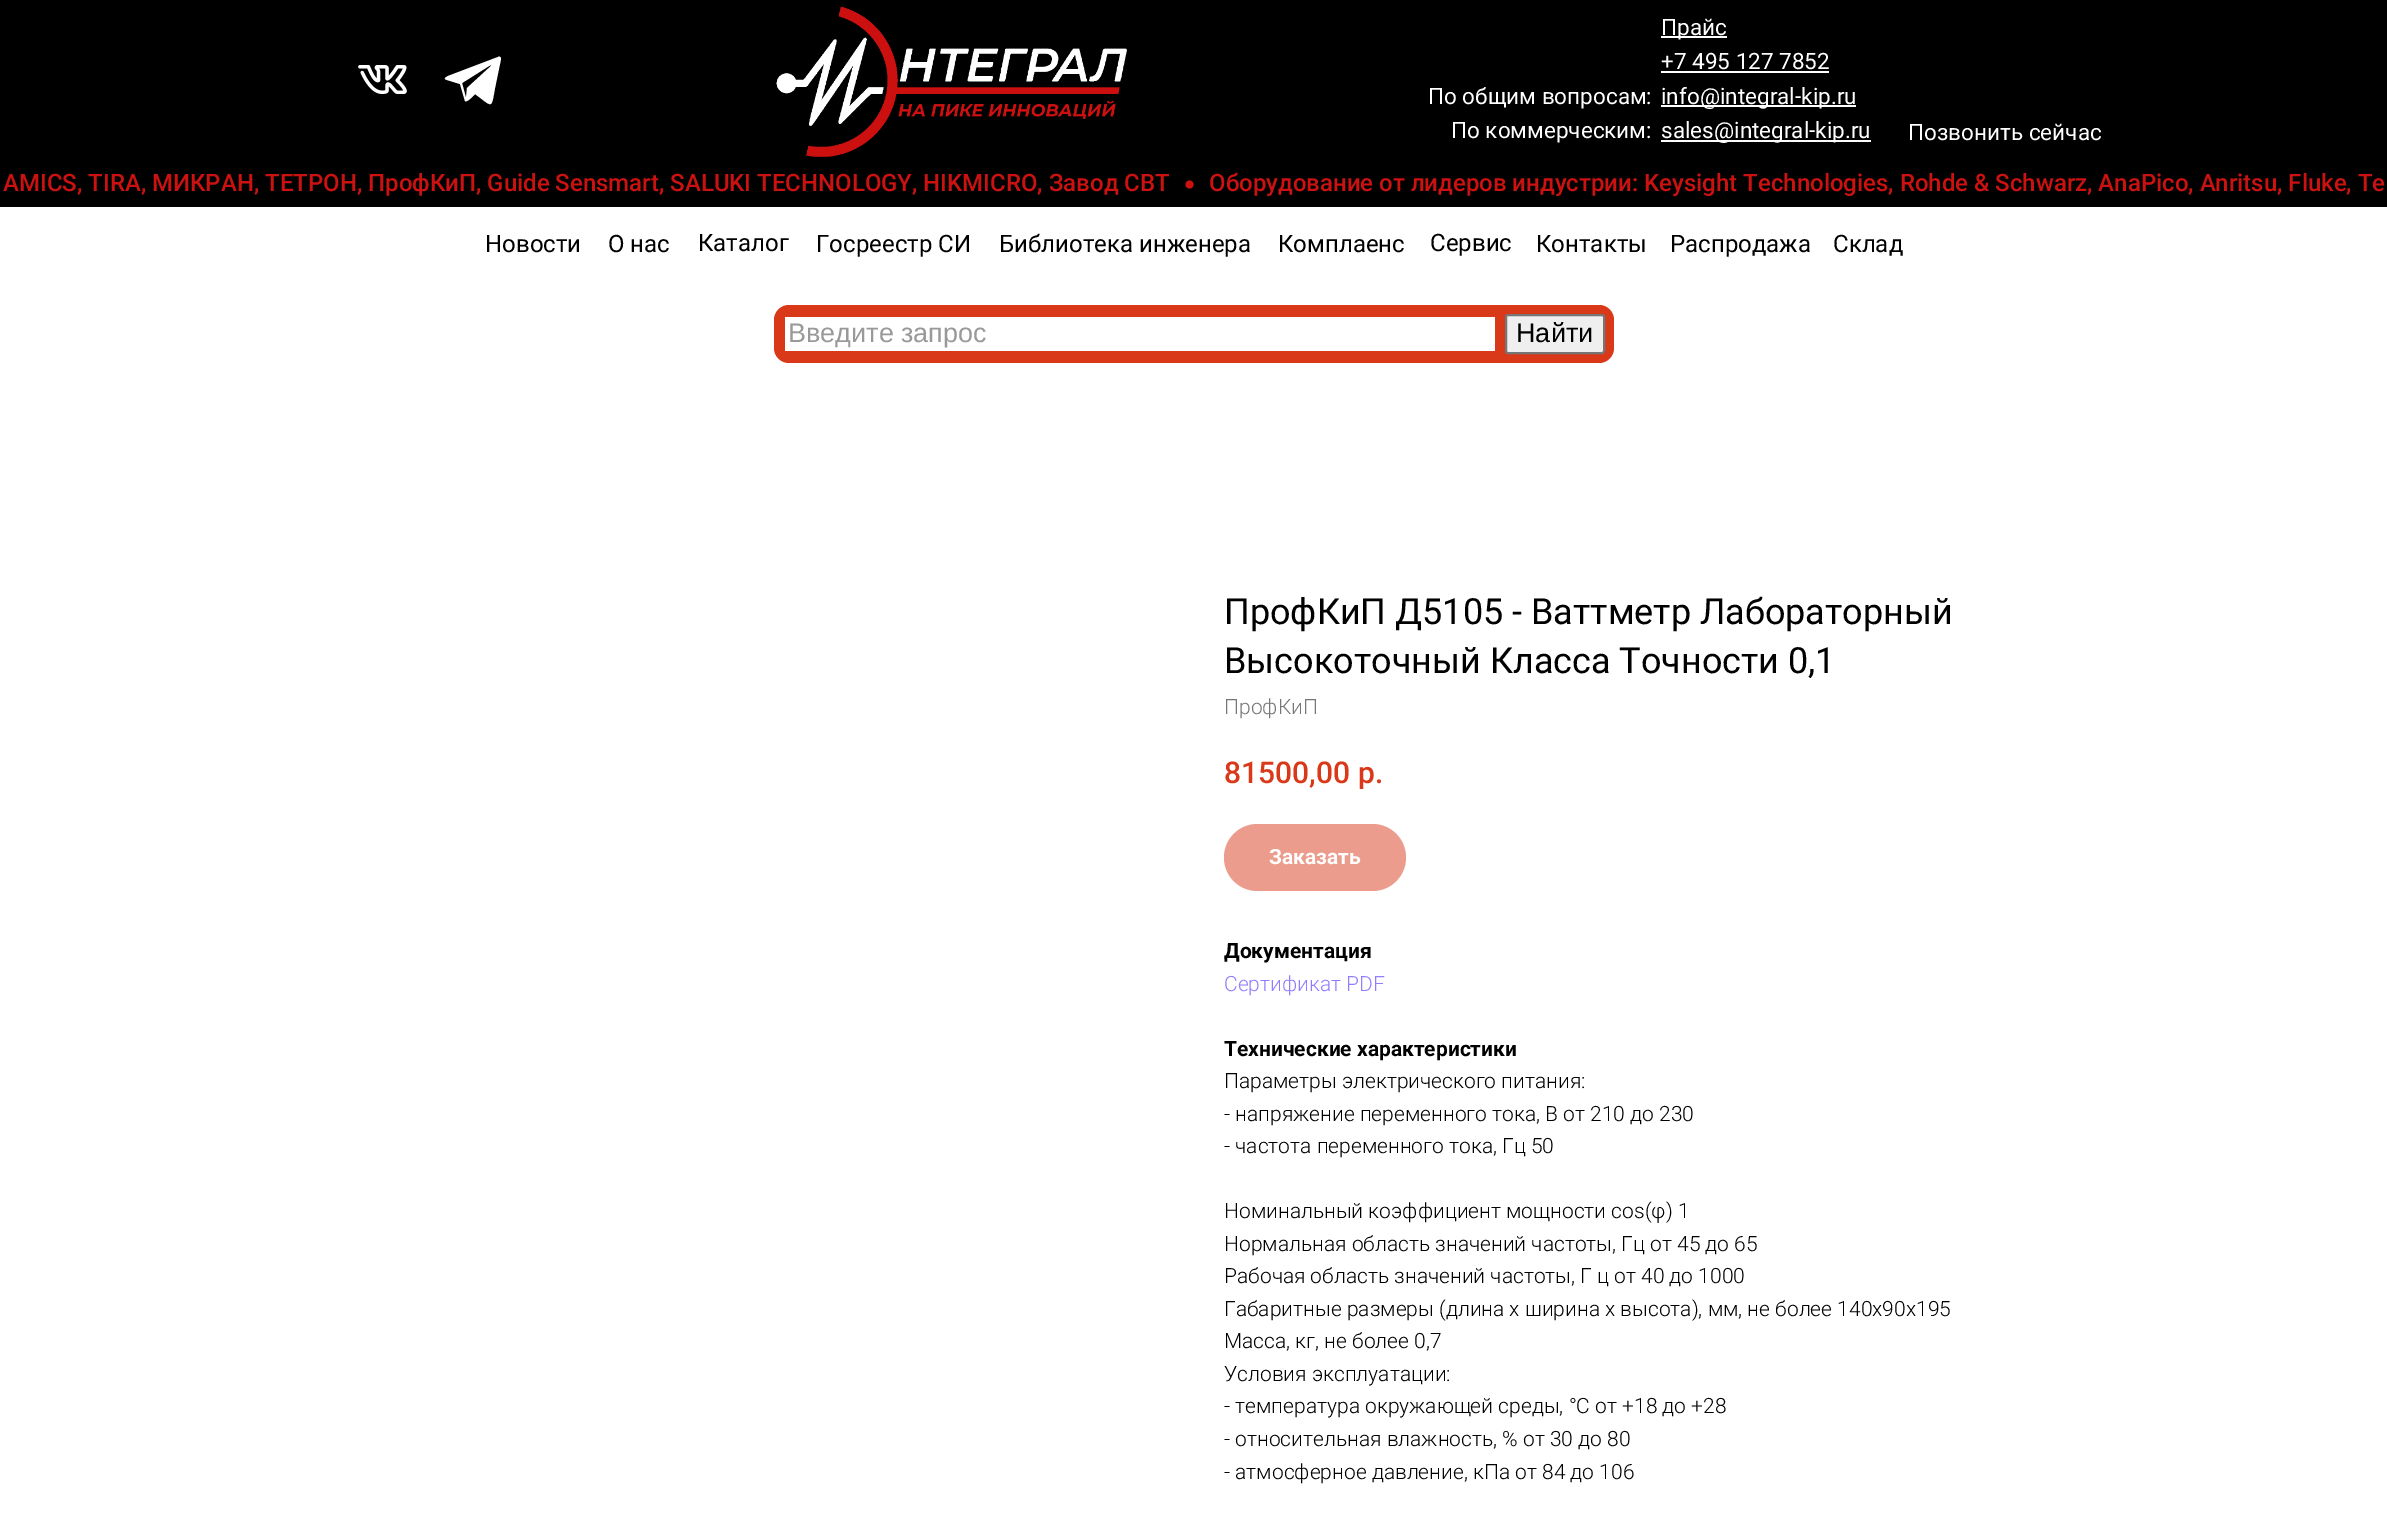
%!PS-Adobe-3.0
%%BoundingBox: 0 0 2387 1518
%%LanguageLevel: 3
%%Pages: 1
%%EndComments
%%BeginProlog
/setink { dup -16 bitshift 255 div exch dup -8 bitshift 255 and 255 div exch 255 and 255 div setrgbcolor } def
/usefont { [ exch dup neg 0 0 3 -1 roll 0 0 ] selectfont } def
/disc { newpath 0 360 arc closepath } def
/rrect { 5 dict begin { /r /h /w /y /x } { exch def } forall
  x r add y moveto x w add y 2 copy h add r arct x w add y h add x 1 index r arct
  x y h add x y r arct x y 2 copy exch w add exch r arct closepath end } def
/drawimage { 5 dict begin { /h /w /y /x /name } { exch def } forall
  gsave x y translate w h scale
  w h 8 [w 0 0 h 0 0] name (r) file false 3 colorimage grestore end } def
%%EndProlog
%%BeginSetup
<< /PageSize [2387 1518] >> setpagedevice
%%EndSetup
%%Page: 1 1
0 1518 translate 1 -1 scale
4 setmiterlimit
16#FFFFFF setink
0 0 2387 1518 rectfill
16#000000 setink
0 0 2387 207 rectfill
(img1.raw) 358 65 49 29 drawimage
16#FFFFFF setink
498 57 moveto 448 76 lineto 444 78 444 79 447 80 curveto 460 84 lineto 465 101 lineto 467 103 474 95 475 94 curveto 493 107 491 110 495 88 curveto 501 59 lineto 501 57 499 56 498 57 curveto closepath 462 83 moveto 489 66 lineto 491 65 492 65 491 66 curveto 467 88 lineto 466 98 lineto closepath fill
(img2.raw) 776 6 351 151 drawimage
1661 36 66 2 rectfill
/Roboto-Regular 22.5 usefont
1661 35 moveto (Прайс) show
1661 69 moveto (+7 495 127 7852) show
1661 71 168 2 rectfill
1661 105 195 2 rectfill
1661 104 moveto (info@integral-kip.ru) show
1661 140 210 2 rectfill
[
    [(sales@integral-kip.ru) 1661 138]
    [(По общим вопросам:) 1428 104]
    [(По коммерческим:) 1451 138]
    [(Позвонить сейчас) 1908 140]
] { aload pop moveto show } forall
/Roboto-Medium 24 usefont
16#CB1211 setink
3 191 moveto (AMICS, TIRA, МИКРАН, ТЕТРОН, ПрофКиП, Guide Sensmart, SALUKI TECHNOLOGY, HIKMICRO, Завод СВТ) show
1189.5 184.5 4 disc fill
1209 191 moveto (Оборудование от лидеров индустрии: Keysight Technologies, Rohde & Schwarz, AnaPico, Anritsu, Fluke, Te) show
/Roboto-Regular 24 usefont
16#000000 setink
[
    [(Новости) 485 252]
    [(О нас) 608 252]
    [(Каталог) 698 251]
    [(Госреестр СИ) 816 252]
    [(Библиотека инженера) 999 252]
    [(Комплаенс) 1278 252]
    [(Сервис) 1430 251]
    [(Контакты) 1536 252]
    [(Распродажа) 1670 252]
    [(Склад) 1833 252]
] { aload pop moveto show } forall
16#D93819 setink
774 305 840 58 15 rrect fill
16#FFFFFF setink
785 317 710 34 rectfill
/LiberationSans-Regular 27 usefont
16#999999 setink
788 342 moveto (Введите запрос) show
16#EFEFEF setink
1506 315 98 38 2 rrect gsave fill grestore
16#767676 setink
2 setlinewidth
stroke
16#000000 setink
1516 342 moveto (Найти) show
/Roboto-Regular 36 usefont
1224 624 moveto (ПрофКиП Д5105 - Ваттметр Лабораторный) show
1224 673 moveto (Высокоточный Класса Точности 0,1) show
/Roboto-Light 21 usefont
16#777777 setink
1224 714 moveto (ПрофКиП) show
/Roboto-Medium 30 usefont
16#D93819 setink
1224 783 moveto (81500,00) show
1358 783 moveto (р.) show
16#EC9C8C setink
1224 824 182 67 33.5 rrect fill
/Roboto-Bold 21 usefont
16#FFFFFF setink
1269 864 moveto (Заказать) show
16#000000 setink
1224 958 moveto (Документация) show
/Roboto-Light 21 usefont
16#937DFF setink
1224 991 moveto (Сертификат PDF) show
/Roboto-Bold 21 usefont
16#000000 setink
1224 1056 moveto (Технические характеристики) show
/Roboto-Light 21 usefont
[
    [(Параметры электрического питания:) 1224 1088]
    [(- напряжение переменного тока, В от 210 до 230) 1224 1121]
    [(- частота переменного тока, Гц 50) 1224 1153]
    [(Номинальный коэффициент мощности cos\(φ\) 1) 1224 1218]
    [(Нормальная область значений частоты, Гц от 45 до 65) 1224 1251]
    [(Рабочая область значений частоты, Г ц от 40 до 1000) 1224 1283]
    [(Габаритные размеры \(длина х ширина х высота\), мм, не более 140x90x195) 1224 1316]
    [(Масса, кг, не более 0,7) 1224 1348]
    [(Условия эксплуатации:) 1224 1381]
    [(- температура окружающей среды, °С от +18 до +28) 1224 1413]
    [(- относительная влажность, % от 30 до 80) 1224 1446]
    [(- атмосферное давление, кПа от 84 до 106) 1224 1479]
] { aload pop moveto show } forall
showpage
%%EOF
